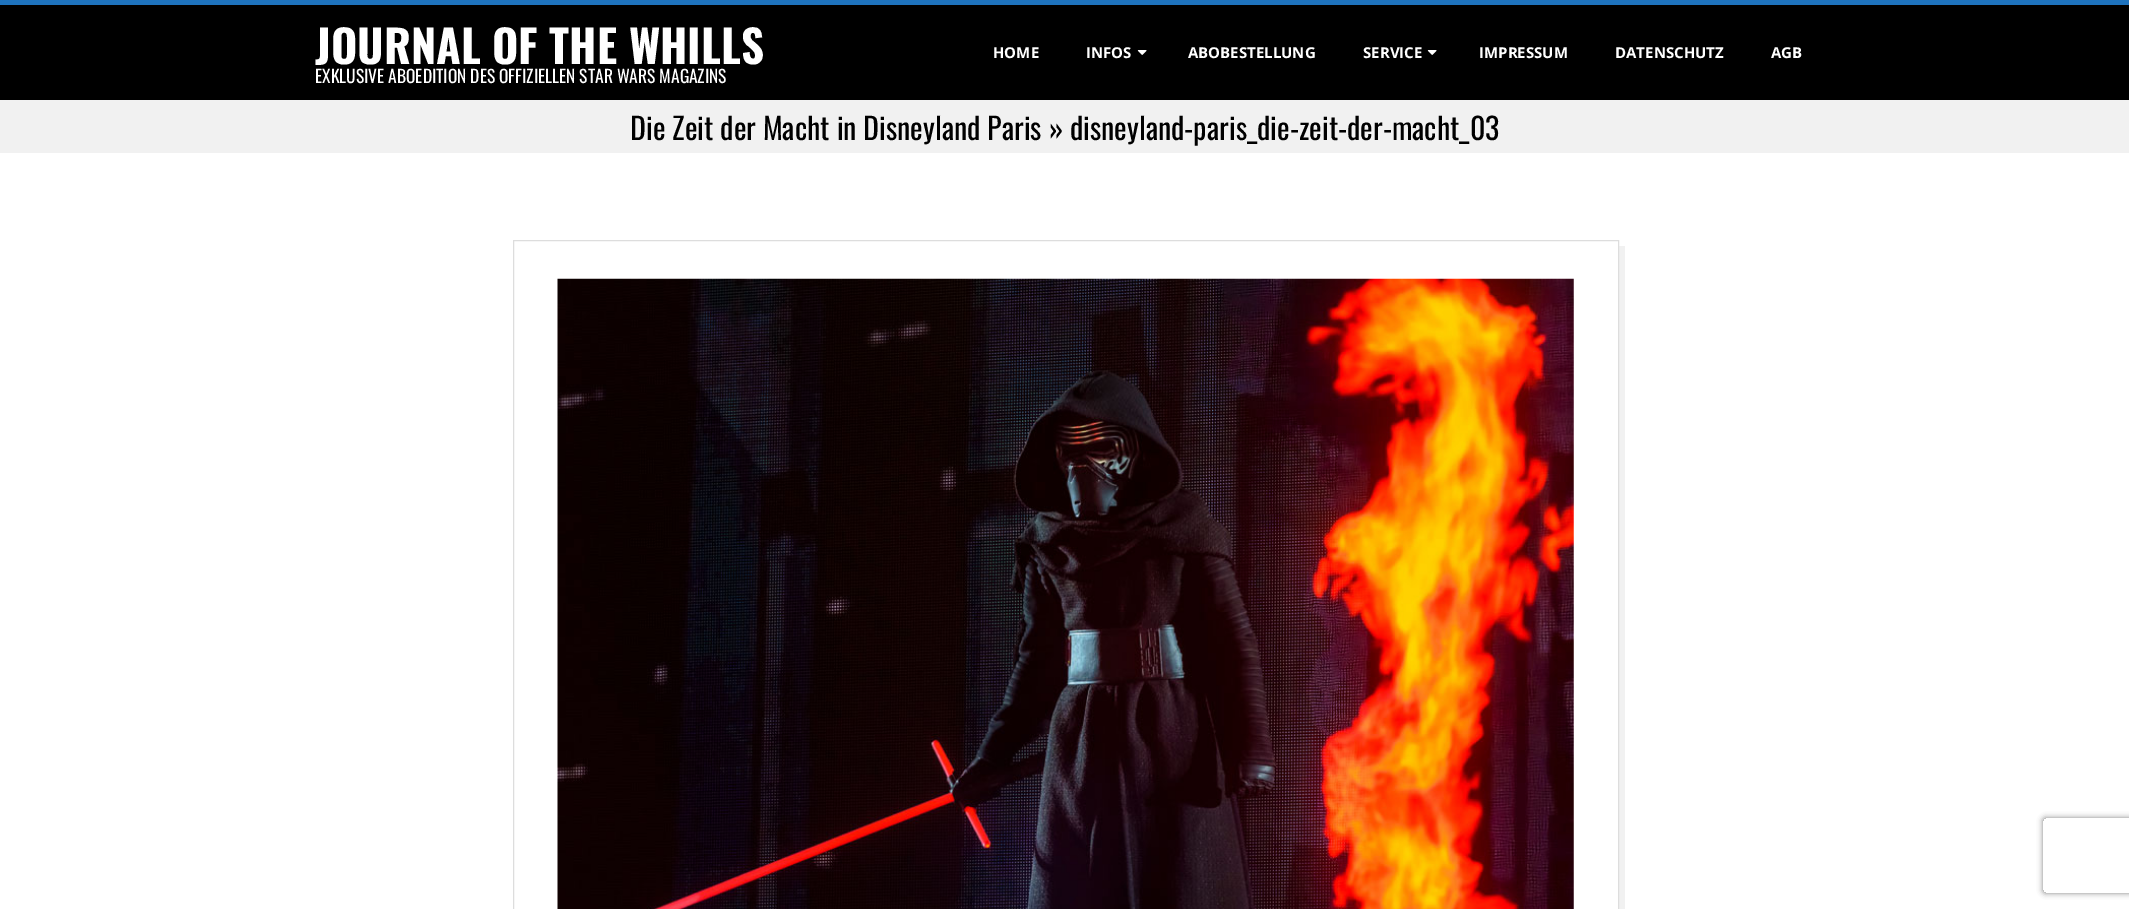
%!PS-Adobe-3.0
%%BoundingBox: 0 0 2129 909
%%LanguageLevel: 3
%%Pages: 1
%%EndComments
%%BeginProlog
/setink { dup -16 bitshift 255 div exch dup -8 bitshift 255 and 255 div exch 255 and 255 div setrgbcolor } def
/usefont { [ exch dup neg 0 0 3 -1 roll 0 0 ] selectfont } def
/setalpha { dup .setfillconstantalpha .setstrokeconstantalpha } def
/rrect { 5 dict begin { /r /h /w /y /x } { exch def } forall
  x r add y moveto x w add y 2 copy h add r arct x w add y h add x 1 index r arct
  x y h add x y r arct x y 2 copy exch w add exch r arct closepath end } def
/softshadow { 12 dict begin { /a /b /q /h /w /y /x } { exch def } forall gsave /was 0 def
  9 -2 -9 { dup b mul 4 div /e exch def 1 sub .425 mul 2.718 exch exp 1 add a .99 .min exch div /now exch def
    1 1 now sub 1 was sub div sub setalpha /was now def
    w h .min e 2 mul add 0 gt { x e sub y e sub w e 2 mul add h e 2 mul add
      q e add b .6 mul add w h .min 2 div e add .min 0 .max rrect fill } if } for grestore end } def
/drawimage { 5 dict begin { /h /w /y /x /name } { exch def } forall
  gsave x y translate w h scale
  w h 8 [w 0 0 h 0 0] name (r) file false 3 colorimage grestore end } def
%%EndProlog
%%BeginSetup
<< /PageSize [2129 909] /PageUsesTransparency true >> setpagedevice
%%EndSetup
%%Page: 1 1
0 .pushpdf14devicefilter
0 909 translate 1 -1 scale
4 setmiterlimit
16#FFFFFF setink
0 0 2129 909 rectfill
16#1E73BE setink
0 0 2129 5 rectfill
16#000000 setink
0 5 2129 95 rectfill
/Oswald-Bold 45 usefont
16#FFFFFF setink
315 64 moveto (JOURNAL OF THE WHILLS) show
/Oswald-Regular 17.5 usefont
315 83 moveto (EXKLUSIVE ABOEDITION DES OFFIZIELLEN STAR WARS MAGAZINS) show
/OpenSans-Bold 15 usefont
993 58 moveto (HOME) show
1086 58 moveto (INFOS) show
(img1.raw) 1137 50 10 5 drawimage
1188 58 moveto (ABOBESTELLUNG) show
1363 58 moveto (SERVICE) show
(img1.raw) 1427 50 10 5 drawimage
[
    [(IMPRESSUM) 1479 58]
    [(DATENSCHUTZ) 1615 58]
    [(AGB) 1771 58]
] { aload pop moveto show } forall
16#F1F1F1 setink
0 100 2129 53 rectfill
/Oswald-Regular 30 usefont
16#000000 setink
630 140 moveto (Die Zeit der Macht in Disneyland Paris » disneyland-paris_die-zeit-der-macht_03) show
16#F1F1F1 setink
519 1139 moveto 519 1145 lineto 1625 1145 lineto 1625 246 lineto 1619 246 lineto 1619 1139 lineto closepath fill
16#DDDDDD setink
513.5 240.5 1105 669 rectstroke
(img2.raw) 557 278 1017 631 drawimage
gsave
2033 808 moveto 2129 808 lineto 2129 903 lineto 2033 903 lineto closepath 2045.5 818 moveto 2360.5 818 lineto 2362 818 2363 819 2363 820.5 curveto 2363 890.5 lineto 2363 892 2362 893 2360.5 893 curveto 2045.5 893 lineto 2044 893 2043 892 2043 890.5 curveto 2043 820.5 lineto 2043 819 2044 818 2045.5 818 curveto closepath eoclip newpath
16#808080 setink
2043 818 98 75 2.5 3 1 softshadow
grestore
.poppdf14devicefilter showpage
%%EOF
